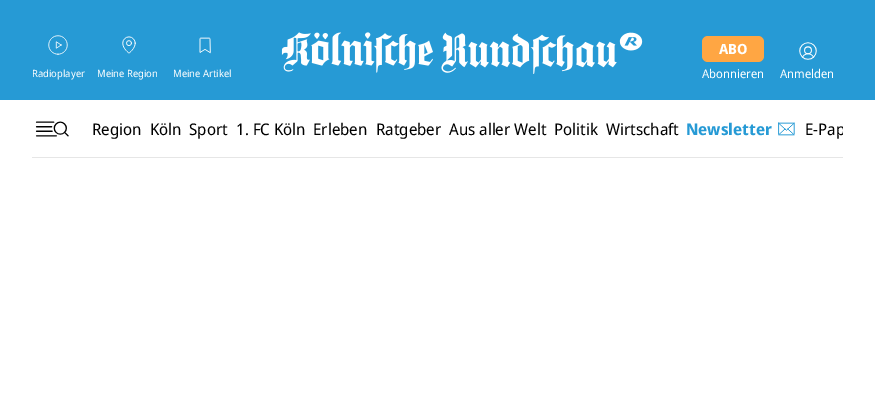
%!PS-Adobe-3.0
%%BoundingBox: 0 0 875 402
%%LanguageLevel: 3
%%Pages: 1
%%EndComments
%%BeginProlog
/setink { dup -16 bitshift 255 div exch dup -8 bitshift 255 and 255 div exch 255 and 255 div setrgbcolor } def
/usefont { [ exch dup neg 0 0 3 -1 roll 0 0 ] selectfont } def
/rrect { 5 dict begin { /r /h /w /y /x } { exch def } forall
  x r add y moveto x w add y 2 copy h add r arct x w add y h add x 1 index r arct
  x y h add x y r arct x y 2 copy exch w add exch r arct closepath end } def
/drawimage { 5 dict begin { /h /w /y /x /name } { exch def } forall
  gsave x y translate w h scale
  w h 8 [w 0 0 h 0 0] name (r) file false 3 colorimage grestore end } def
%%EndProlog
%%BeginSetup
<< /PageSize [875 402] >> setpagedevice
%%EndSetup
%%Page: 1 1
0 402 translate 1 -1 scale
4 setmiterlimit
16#FFFFFF setink
0 0 875 402 rectfill
16#269AD5 setink
0 0 875 100 rectfill
(img1.raw) 48 35 20 20 drawimage
/NotoSansDisplay-Regular 10 usefont
16#FFFFFF setink
32 77 moveto (Radioplayer) show
(img2.raw) 122 36 14 18 drawimage
97 77 moveto (Meine Region) show
(img3.raw) 199 37 12 17 drawimage
173 77 moveto (Meine Artikel) show
(img4.raw) 281 32 362 42 drawimage
16#FFA643 setink
702 36 62 26 6 rrect fill
/NotoSansDisplay-Bold 14 usefont
16#FFFFFF setink
719 54 moveto (ABO) show
/NotoSansDisplay-Regular 12 usefont
702 78 moveto (Abonnieren) show
(img5.raw) 799 42 18 18 drawimage
780 78 moveto (Anmelden) show
16#E6E6E6 setink
32 157 811 1 rectfill
(img6.raw) 35 121 34 16 drawimage
/NotoSansDisplay-Regular 16 usefont
16#000000 setink
[
    [(Region) 92 135]
    [(Köln) 150 135]
    [(Sport) 189 135]
    [(1. FC Köln) 236 135]
    [(Erleben) 313 135]
    [(Ratgeber) 376 135]
    [(Aus aller Welt) 449 135]
    [(Politik) 554 135]
    [(Wirtschaft) 606 135]
] { aload pop moveto show } forall
/NotoSansDisplay-Bold 16 usefont
16#269AD5 setink
686 135 moveto (Newsletter) show
(img7.raw) 778 122 17 14 drawimage
gsave
92 104 751 50 rectclip
/NotoSansDisplay-Regular 16 usefont
16#000000 setink
805 135 moveto (E-Pap) show
grestore
showpage
%%EOF
